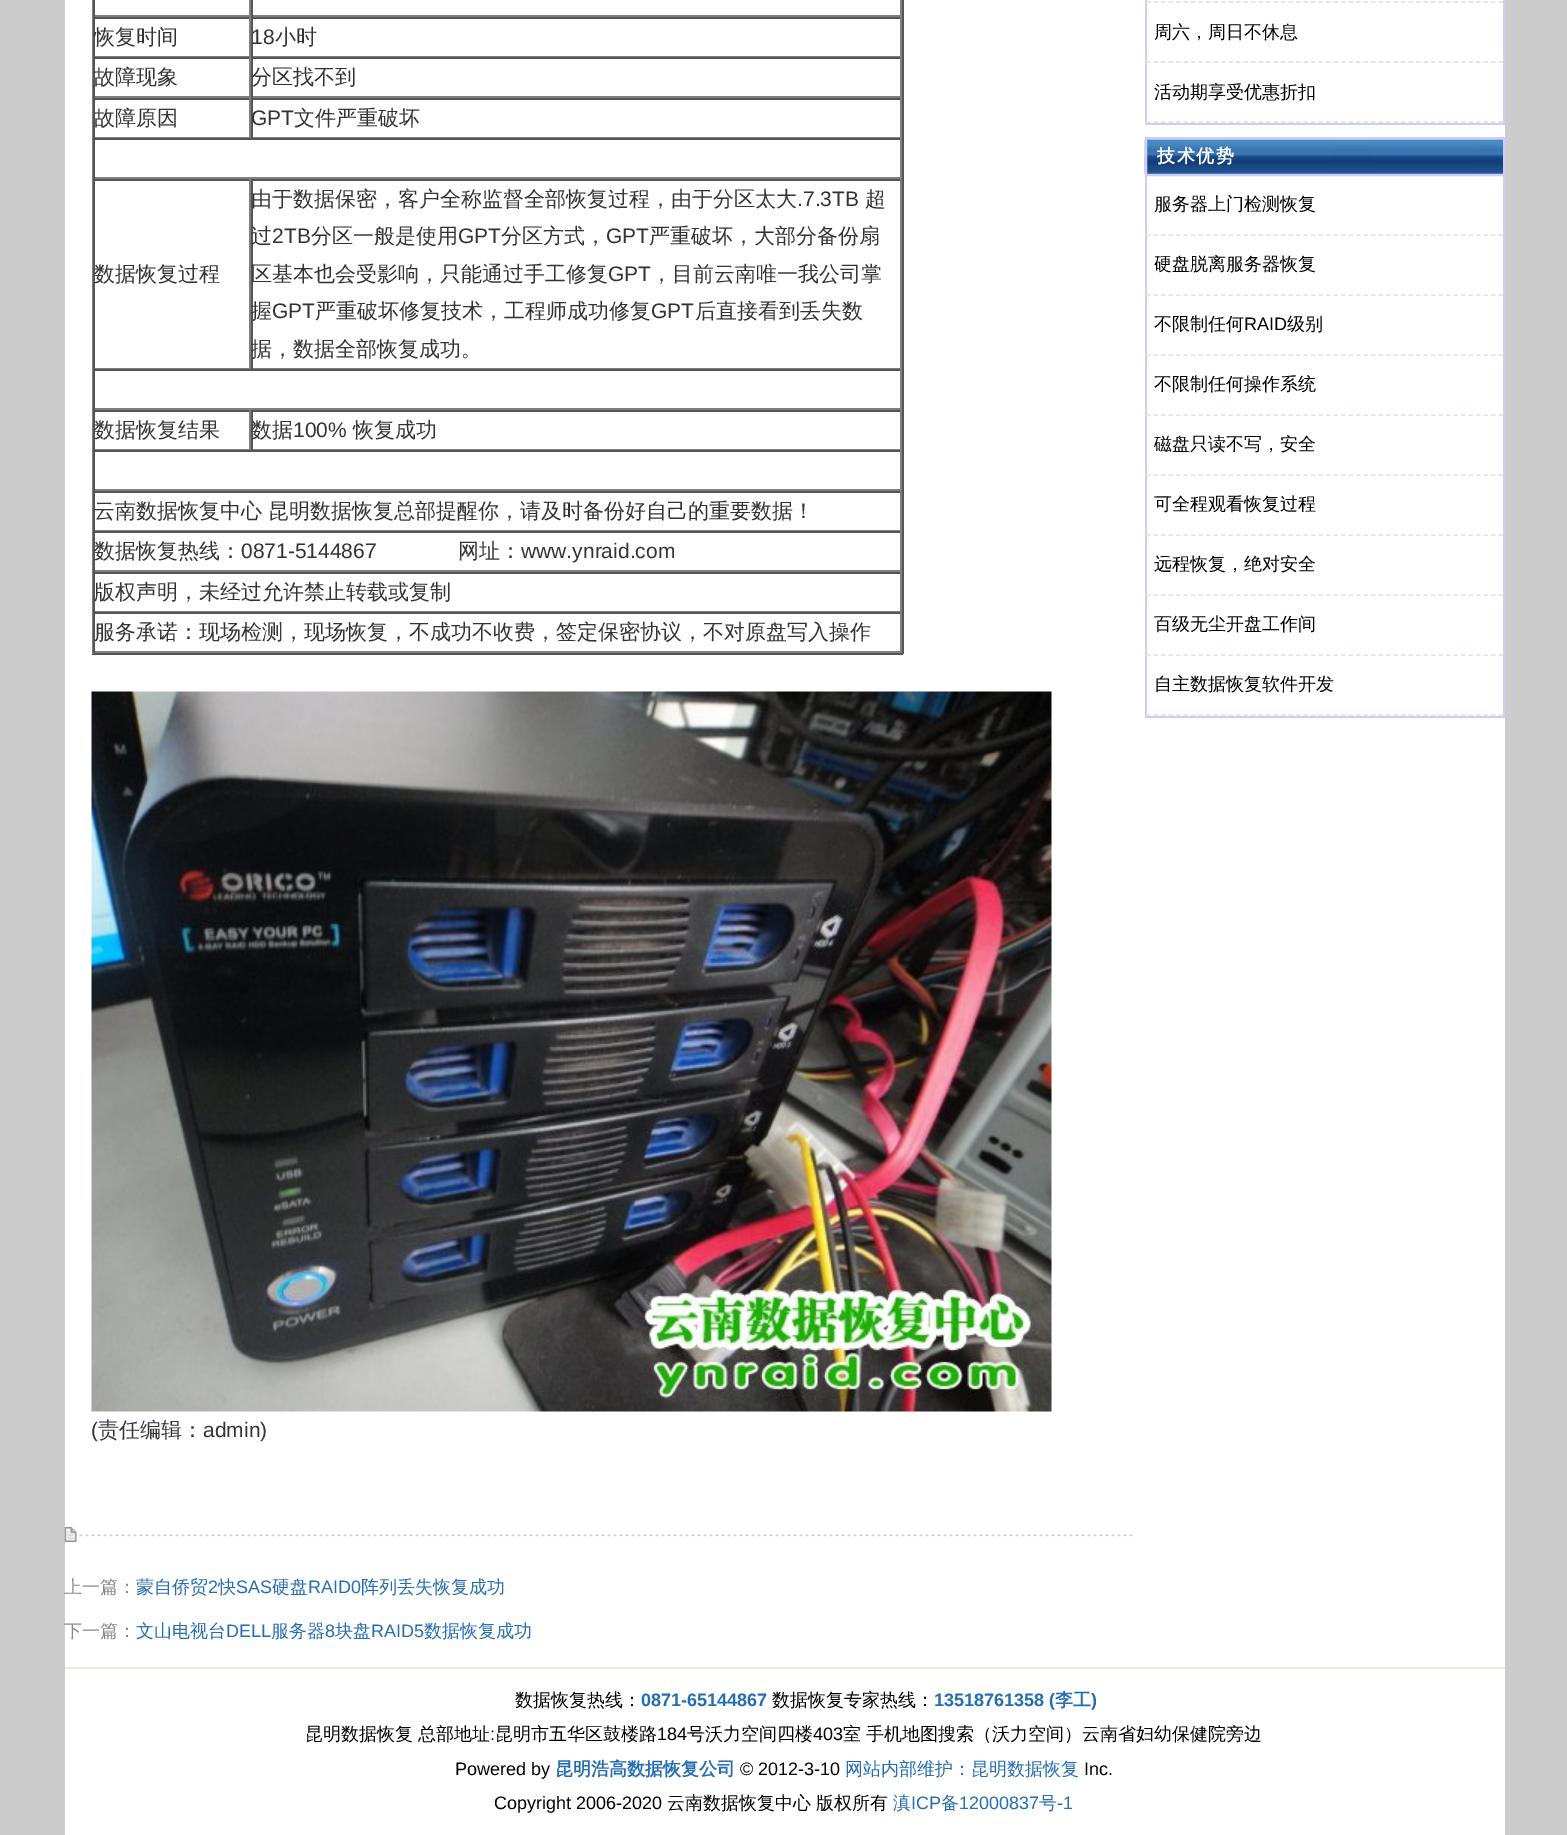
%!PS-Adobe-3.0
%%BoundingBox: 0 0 1567 1835
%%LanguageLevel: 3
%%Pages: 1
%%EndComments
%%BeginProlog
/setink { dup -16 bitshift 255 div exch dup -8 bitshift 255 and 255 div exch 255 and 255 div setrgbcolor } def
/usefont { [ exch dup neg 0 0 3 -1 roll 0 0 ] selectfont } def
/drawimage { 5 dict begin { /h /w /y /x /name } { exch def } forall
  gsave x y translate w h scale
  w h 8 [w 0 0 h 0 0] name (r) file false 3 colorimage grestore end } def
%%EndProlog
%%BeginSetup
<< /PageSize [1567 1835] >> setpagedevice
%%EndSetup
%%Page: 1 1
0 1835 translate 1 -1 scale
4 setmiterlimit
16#CCCCCC setink
0 0 1567 1835 rectfill
[
    [65 0 1440 1835 16#FFFFFF]
    [902 0 2 654 16#555555]
    [92 653 811 2 16#555555]
    [92 0 2 654 16#808080]
    [249 0 2 17 16#808080]
    [93 15 158 2 16#808080]
    [93 0 2 17 16#555555]
    [900 0 2 17 16#808080]
    [251 15 651 2 16#808080]
    [251 0 2 17 16#555555]
    [93 17 809 2 16#555555]
    [249 17 2 40 16#808080]
    [93 56 158 1 16#808080]
    [93 17 2 40 16#555555]
] { aload pop setink rectfill } forall
/WenQuanYiZenHei-Medium 21 usefont
16#333333 setink
94 44 moveto (恢复时间) show
[
    [900 17 2 40 16#808080]
    [251 56 651 1 16#808080]
    [251 17 2 40 16#555555]
] { aload pop setink rectfill } forall
/LiberationSans-Regular 21 usefont
16#333333 setink
251 44 moveto (18) show
/WenQuanYiZenHei-Medium 21 usefont
275 44 moveto (小时) show
[
    [93 57 809 2 16#555555]
    [249 57 2 41 16#808080]
    [93 96 158 2 16#808080]
    [93 57 2 41 16#555555]
] { aload pop setink rectfill } forall
16#333333 setink
94 84 moveto (故障现象) show
[
    [900 57 2 41 16#808080]
    [251 96 651 2 16#808080]
    [251 57 2 41 16#555555]
] { aload pop setink rectfill } forall
16#333333 setink
251 84 moveto (分区找不到) show
[
    [93 98 809 2 16#555555]
    [249 98 2 40 16#808080]
    [93 137 158 1 16#808080]
    [93 98 2 40 16#555555]
] { aload pop setink rectfill } forall
16#333333 setink
94 125 moveto (故障原因) show
[
    [900 98 2 40 16#808080]
    [251 137 651 1 16#808080]
    [251 98 2 40 16#555555]
] { aload pop setink rectfill } forall
/LiberationSans-Regular 21 usefont
16#333333 setink
251 125 moveto (GPT) show
/WenQuanYiZenHei-Medium 21 usefont
294 125 moveto (文件严重破坏) show
[
    [93 138 809 2 16#555555]
    [900 138 2 41 16#808080]
    [93 177 809 2 16#808080]
    [93 138 2 41 16#555555]
    [93 179 809 2 16#555555]
    [249 179 2 190 16#808080]
    [93 368 158 1 16#808080]
    [93 179 2 190 16#555555]
] { aload pop setink rectfill } forall
16#333333 setink
94 281 moveto (数据恢复过程) show
[
    [900 179 2 190 16#808080]
    [251 368 651 1 16#808080]
    [251 179 2 190 16#555555]
] { aload pop setink rectfill } forall
16#333333 setink
251 206 moveto (由于数据保密，客户全称监督全部恢复过程，由于分区太大) show
/LiberationSans-Regular 21 usefont
797 206 moveto (.7.3TB) show
/WenQuanYiZenHei-Medium 21 usefont
865 206 moveto (超) show
251 243 moveto (过) show
/LiberationSans-Regular 21 usefont
272 243 moveto (2TB) show
/WenQuanYiZenHei-Medium 21 usefont
311 243 moveto (分区一般是使用) show
/LiberationSans-Regular 21 usefont
458 243 moveto (GPT) show
/WenQuanYiZenHei-Medium 21 usefont
501 243 moveto (分区方式，) show
/LiberationSans-Regular 21 usefont
606 243 moveto (GPT) show
/WenQuanYiZenHei-Medium 21 usefont
649 243 moveto (严重破坏，大部分备份扇) show
251 281 moveto (区基本也会受影响，只能通过手工修复) show
/LiberationSans-Regular 21 usefont
608 281 moveto (GPT) show
/WenQuanYiZenHei-Medium 21 usefont
651 281 moveto (，目前云南唯一我公司掌) show
251 318 moveto (握) show
/LiberationSans-Regular 21 usefont
272 318 moveto (GPT) show
/WenQuanYiZenHei-Medium 21 usefont
315 318 moveto (严重破坏修复技术，工程师成功修复) show
/LiberationSans-Regular 21 usefont
651 318 moveto (GPT) show
/WenQuanYiZenHei-Medium 21 usefont
695 318 moveto (后直接看到丢失数) show
251 356 moveto (据，数据全部恢复成功。) show
[
    [93 369 809 2 16#555555]
    [900 369 2 41 16#808080]
    [93 408 809 2 16#808080]
    [93 369 2 41 16#555555]
    [93 410 809 2 16#555555]
    [249 410 2 40 16#808080]
    [93 449 158 1 16#808080]
    [93 410 2 40 16#555555]
] { aload pop setink rectfill } forall
16#333333 setink
94 437 moveto (数据恢复结果) show
[
    [900 410 2 40 16#808080]
    [251 449 651 1 16#808080]
    [251 410 2 40 16#555555]
] { aload pop setink rectfill } forall
16#333333 setink
251 437 moveto (数据) show
/LiberationSans-Regular 21 usefont
293 437 moveto (100%) show
/WenQuanYiZenHei-Medium 21 usefont
353 437 moveto (恢复成功) show
[
    [93 450 809 2 16#555555]
    [900 450 2 41 16#808080]
    [93 489 809 2 16#808080]
    [93 450 2 41 16#555555]
    [93 491 809 2 16#555555]
    [900 491 2 40 16#808080]
    [93 530 809 1 16#808080]
    [93 491 2 40 16#555555]
] { aload pop setink rectfill } forall
16#333333 setink
94 518 moveto (云南数据恢复中心 昆明数据恢复总部提醒你，请及时备份好自己的重要数据！) show
[
    [93 531 809 2 16#555555]
    [900 531 2 41 16#808080]
    [93 570 809 2 16#808080]
    [93 531 2 41 16#555555]
] { aload pop setink rectfill } forall
16#333333 setink
94 558 moveto (数据恢复热线：) show
/LiberationSans-Regular 21 usefont
241 558 moveto (0871-5144867) show
/WenQuanYiZenHei-Medium 21 usefont
458 558 moveto (网址：) show
/LiberationSans-Regular 21 usefont
521 558 moveto (www.ynraid.com) show
[
    [93 572 809 2 16#555555]
    [900 572 2 40 16#808080]
    [93 611 809 1 16#808080]
    [93 572 2 40 16#555555]
] { aload pop setink rectfill } forall
/WenQuanYiZenHei-Medium 21 usefont
16#333333 setink
94 599 moveto (版权声明，未经过允许禁止转载或复制) show
[
    [93 612 809 2 16#555555]
    [900 612 2 41 16#808080]
    [93 651 809 2 16#808080]
    [93 612 2 41 16#555555]
] { aload pop setink rectfill } forall
16#333333 setink
94 639 moveto (服务承诺：现场检测，现场恢复，不成功不收费，签定保密协议，不对原盘写入操作) show
(img1.raw) 91 691 961 721 drawimage
/LiberationSans-Regular 21 usefont
91 1437 moveto (\() show
/WenQuanYiZenHei-Medium 21 usefont
98 1437 moveto (责任编辑：) show
/LiberationSans-Regular 21 usefont
203 1437 moveto (admin\)) show
(img2.raw) 76 1534 1057 3 drawimage
(img3.raw) 64 1527 13 15 drawimage
/WenQuanYiZenHei-Medium 18 usefont
16#888888 setink
64 1593 moveto (上一篇：) show
16#256EB1 setink
136 1593 moveto (蒙自侨贸) show
/LiberationSans-Regular 18 usefont
208 1593 moveto (2) show
/WenQuanYiZenHei-Medium 18 usefont
218 1593 moveto (快) show
/LiberationSans-Regular 18 usefont
236 1593 moveto (SAS) show
/WenQuanYiZenHei-Medium 18 usefont
272 1593 moveto (硬盘) show
/LiberationSans-Regular 18 usefont
308 1593 moveto (RAID0) show
/WenQuanYiZenHei-Medium 18 usefont
361 1593 moveto (阵列丢失恢复成功) show
16#888888 setink
64 1637 moveto (下一篇：) show
16#256EB1 setink
136 1637 moveto (文山电视台) show
/LiberationSans-Regular 18 usefont
226 1637 moveto (DELL) show
/WenQuanYiZenHei-Medium 18 usefont
271 1637 moveto (服务器) show
/LiberationSans-Regular 18 usefont
325 1637 moveto (8) show
/WenQuanYiZenHei-Medium 18 usefont
335 1637 moveto (块盘) show
/LiberationSans-Regular 18 usefont
371 1637 moveto (RAID5) show
/WenQuanYiZenHei-Medium 18 usefont
424 1637 moveto (数据恢复成功) show
[
    [1145 123 360 2 16#CCCCFF]
    [1503 0 2 123 16#CCCCFF]
    [1145 0 2 123 16#CCCCFF]
] { aload pop setink rectfill } forall
16#DCEBD7 setink
1.5 setlinewidth
[4.5 3] 0 setdash
1146 2 moveto 1503 2 lineto stroke
1146 62 moveto 1503 62 lineto stroke
16#000000 setink
1154 38 moveto (周六，周日不休息) show
16#DCEBD7 setink
1146 122 moveto 1503 122 lineto stroke
16#000000 setink
1154 98 moveto (活动期享受优惠折扣) show
16#CCCCFF setink
1145 716 360 2 rectfill
(img4.raw) 1144 137 359 38 drawimage
2 setlinewidth
[] 0 setdash
1146 138 358 37 rectstroke
/WenQuanYiZenHei-Bold 18 usefont
16#FFFFFF setink
1157 162 moveto 1.5 0 (技术优势) ashow
16#CCCCFF setink
1503 176 2 540 rectfill
1145 176 2 540 rectfill
16#DCEBD7 setink
1.5 setlinewidth
[4.5 3] 0 setdash
1146 235 moveto 1503 235 lineto stroke
/WenQuanYiZenHei-Medium 18 usefont
16#000000 setink
1154 210 moveto (服务器上门检测恢复) show
16#DCEBD7 setink
1146 295 moveto 1503 295 lineto stroke
16#000000 setink
1154 270 moveto (硬盘脱离服务器恢复) show
16#DCEBD7 setink
1146 355 moveto 1503 355 lineto stroke
16#000000 setink
1154 330 moveto (不限制任何) show
/LiberationSans-Regular 18 usefont
1244 330 moveto (RAID) show
/WenQuanYiZenHei-Medium 18 usefont
1287 330 moveto (级别) show
16#DCEBD7 setink
1146 415 moveto 1503 415 lineto stroke
16#000000 setink
1154 390 moveto (不限制任何操作系统) show
16#DCEBD7 setink
1146 475 moveto 1503 475 lineto stroke
16#000000 setink
1154 450 moveto (磁盘只读不写，安全) show
16#DCEBD7 setink
1146 535 moveto 1503 535 lineto stroke
16#000000 setink
1154 510 moveto (可全程观看恢复过程) show
16#DCEBD7 setink
1146 595 moveto 1503 595 lineto stroke
16#000000 setink
1154 570 moveto (远程恢复，绝对安全) show
16#DCEBD7 setink
1146 655 moveto 1503 655 lineto stroke
16#000000 setink
1154 630 moveto (百级无尘开盘工作间) show
16#DCEBD7 setink
1146 715 moveto 1503 715 lineto stroke
16#000000 setink
1154 690 moveto (自主数据恢复软件开发) show
16#E5EFD6 setink
65 1667 1440 2 rectfill
16#000000 setink
515 1706 moveto (数据恢复热线：) show
/LiberationSans-Bold 18 usefont
16#256EB1 setink
641 1706 moveto (0871-65144867) show
/WenQuanYiZenHei-Medium 18 usefont
16#000000 setink
772 1706 moveto (数据恢复专家热线：) show
/LiberationSans-Bold 18 usefont
16#256EB1 setink
934 1706 moveto (13518761358 \() show
/WenQuanYiZenHei-Bold 18 usefont
1055 1706 moveto (李工) show
/LiberationSans-Bold 18 usefont
1091 1706 moveto (\)) show
/WenQuanYiZenHei-Medium 18 usefont
16#000000 setink
305 1740 moveto (昆明数据恢复 总部地址) show
/LiberationSans-Regular 18 usefont
490 1740 moveto (:) show
/WenQuanYiZenHei-Medium 18 usefont
495 1740 moveto (昆明市五华区鼓楼路) show
/LiberationSans-Regular 18 usefont
657 1740 moveto (184) show
/WenQuanYiZenHei-Medium 18 usefont
687 1740 moveto (号沃力空间四楼) show
/LiberationSans-Regular 18 usefont
813 1740 moveto (403) show
/WenQuanYiZenHei-Medium 18 usefont
843 1740 moveto (室 手机地图搜索（沃力空间）云南省妇幼保健院旁边) show
/LiberationSans-Regular 18 usefont
455 1775 moveto (Powered by) show
/WenQuanYiZenHei-Bold 18 usefont
16#256EB1 setink
555 1775 moveto (昆明浩高数据恢复公司) show
/LiberationSans-Regular 18 usefont
16#000000 setink
740 1775 moveto (© 2012-3-10) show
/WenQuanYiZenHei-Medium 18 usefont
16#256EB1 setink
845 1775 moveto (网站内部维护：昆明数据恢复) show
/LiberationSans-Regular 18 usefont
16#000000 setink
1084 1775 moveto (Inc.) show
494 1809 moveto (Copyright 2006-2020) show
/WenQuanYiZenHei-Medium 18 usefont
667 1809 moveto (云南数据恢复中心) show
816 1809 moveto (版权所有) show
16#256EB1 setink
893 1809 moveto (滇) show
/LiberationSans-Regular 18 usefont
911 1809 moveto (ICP) show
/WenQuanYiZenHei-Medium 18 usefont
941 1809 moveto (备) show
/LiberationSans-Regular 18 usefont
959 1809 moveto (12000837) show
/WenQuanYiZenHei-Medium 18 usefont
1039 1809 moveto (号) show
/LiberationSans-Regular 18 usefont
1057 1809 moveto (-1) show
showpage
%%EOF
